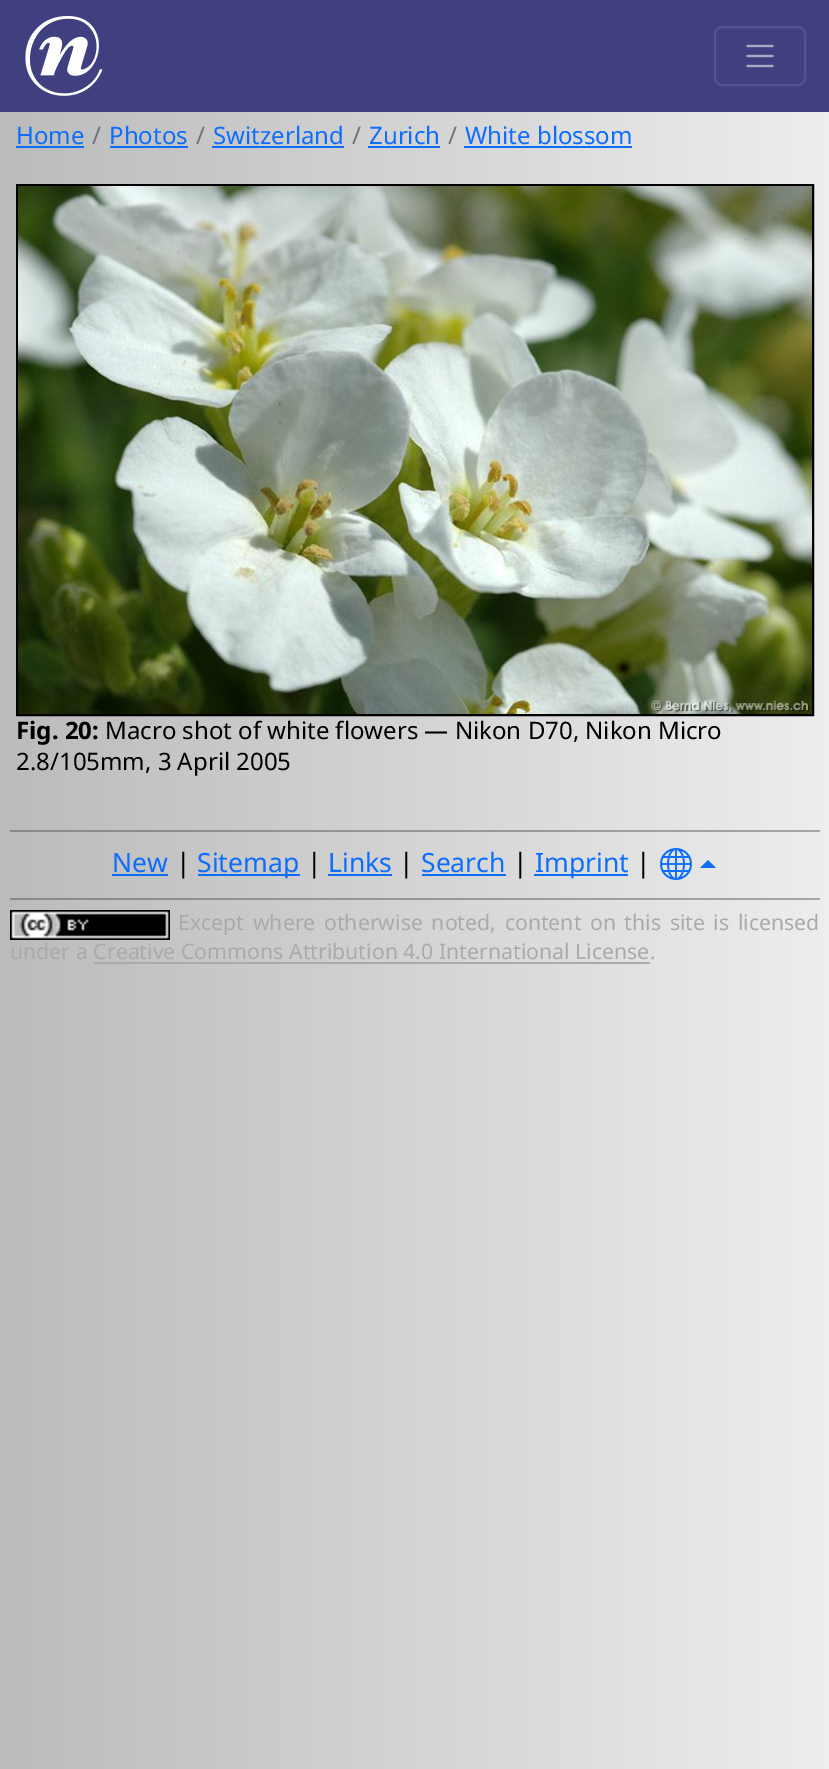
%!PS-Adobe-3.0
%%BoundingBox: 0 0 829 1769
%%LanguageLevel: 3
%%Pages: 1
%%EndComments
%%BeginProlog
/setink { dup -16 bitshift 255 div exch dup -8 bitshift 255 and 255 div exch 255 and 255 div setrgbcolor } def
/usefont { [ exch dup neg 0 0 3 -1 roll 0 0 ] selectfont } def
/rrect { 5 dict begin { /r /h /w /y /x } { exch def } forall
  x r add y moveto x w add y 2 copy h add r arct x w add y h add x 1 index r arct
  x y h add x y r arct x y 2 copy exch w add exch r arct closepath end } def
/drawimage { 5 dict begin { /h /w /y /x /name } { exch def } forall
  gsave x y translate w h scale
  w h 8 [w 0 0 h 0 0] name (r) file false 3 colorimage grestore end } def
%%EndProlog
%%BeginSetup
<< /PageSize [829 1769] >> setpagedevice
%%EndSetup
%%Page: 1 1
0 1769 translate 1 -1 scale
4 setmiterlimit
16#FFFFFF setink
0 0 829 1769 rectfill
gsave 0 112 moveto 829 112 lineto 829 1769 lineto 0 1769 lineto closepath clip newpath
<< /ShadingType 2 /ColorSpace /DeviceRGB /Coords [0 504 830 504] /Extend [true true] /Function << /FunctionType 2 /Domain [0 1] /C0 [0.733 0.733 0.733] /C1 [0.933 0.933 0.933] /N 1 >> >> shfill grestore
gsave 10 898 moveto 820 898 lineto 820 900 lineto 10 900 lineto closepath clip newpath
<< /ShadingType 2 /ColorSpace /DeviceRGB /Coords [0 504 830 504] /Extend [true true] /Function << /FunctionType 2 /Domain [0 1] /C0 [0.537 0.537 0.537] /C1 [0.651 0.651 0.651] /N 1 >> >> shfill grestore
gsave 10 830 moveto 820 830 lineto 820 832 lineto 10 832 lineto closepath clip newpath
<< /ShadingType 2 /ColorSpace /DeviceRGB /Coords [0 504 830 504] /Extend [true true] /Function << /FunctionType 2 /Domain [0 1] /C0 [0.537 0.537 0.537] /C1 [0.651 0.651 0.651] /N 1 >> >> shfill grestore
16#404080 setink
0 0 829 112 rectfill
(img1.raw) 25 16 78 80 drawimage
16#53538D setink
2 setlinewidth
715 27 90 58 7 rrect stroke
(img2.raw) 746 44 28 24 drawimage
/NotoSans-Regular 24 usefont
16#0D6EFD setink
16 144 moveto (Home) show
16 146 68 2 rectfill
16#6C757D setink
92 144 moveto (/) show
16#0D6EFD setink
109 144 moveto (Photos) show
110 146 78 2 rectfill
16#6C757D setink
196 144 moveto (/) show
16#0D6EFD setink
213 144 moveto (Switzerland) show
212 146 132 2 rectfill
16#6C757D setink
352 144 moveto (/) show
16#0D6EFD setink
369 144 moveto (Zurich) show
368 146 72 2 rectfill
16#6C757D setink
448 144 moveto (/) show
16#0D6EFD setink
465 144 moveto (White blossom) show
464 146 168 2 rectfill
16#000000 setink
17 185 796 530 rectstroke
(img3.raw) 18 186 794 528 drawimage
/NotoSans-Bold 24 usefont
16 739 moveto (Fig. 20:) show
/NotoSans-Regular 24 usefont
105 739 moveto (Macro shot of white flowers — Nikon D70, Nikon Micro) show
16 770 moveto (2.8/105mm, 3 April 2005) show
/NotoSans-Regular 26.5 usefont
16#0D6EFD setink
112 872 moveto (New) show
112 874 56 2 rectfill
16#000000 setink
176 872 moveto (|) show
16#0D6EFD setink
198 874 102 2 rectfill
197 872 moveto (Sitemap) show
16#000000 setink
307 872 moveto (|) show
16#0D6EFD setink
328 872 moveto (Links) show
328 874 64 2 rectfill
16#000000 setink
399 872 moveto (|) show
16#0D6EFD setink
421 872 moveto (Search) show
422 874 84 2 rectfill
16#000000 setink
513 872 moveto (|) show
16#0D6EFD setink
534 874 94 2 rectfill
535 872 moveto (Imprint) show
16#000000 setink
636 872 moveto (|) show
(img4.raw) 660 848 32 32 drawimage
16#0D6EFD setink
716 868 moveto 700 868 lineto 708 860 lineto closepath fill
(img5.raw) 10 910 160 30 drawimage
/NotoSans-Regular 21.3 usefont
16#AAAAAA setink
178 930 moveto 3 0 32 (Except where otherwise noted, content on this site is licensed) widthshow
10 959 moveto (under a Creative Commons Attribution 4.0 International License) show
650 959 moveto (.) show
94 962 556 2 rectfill
showpage
%%EOF
